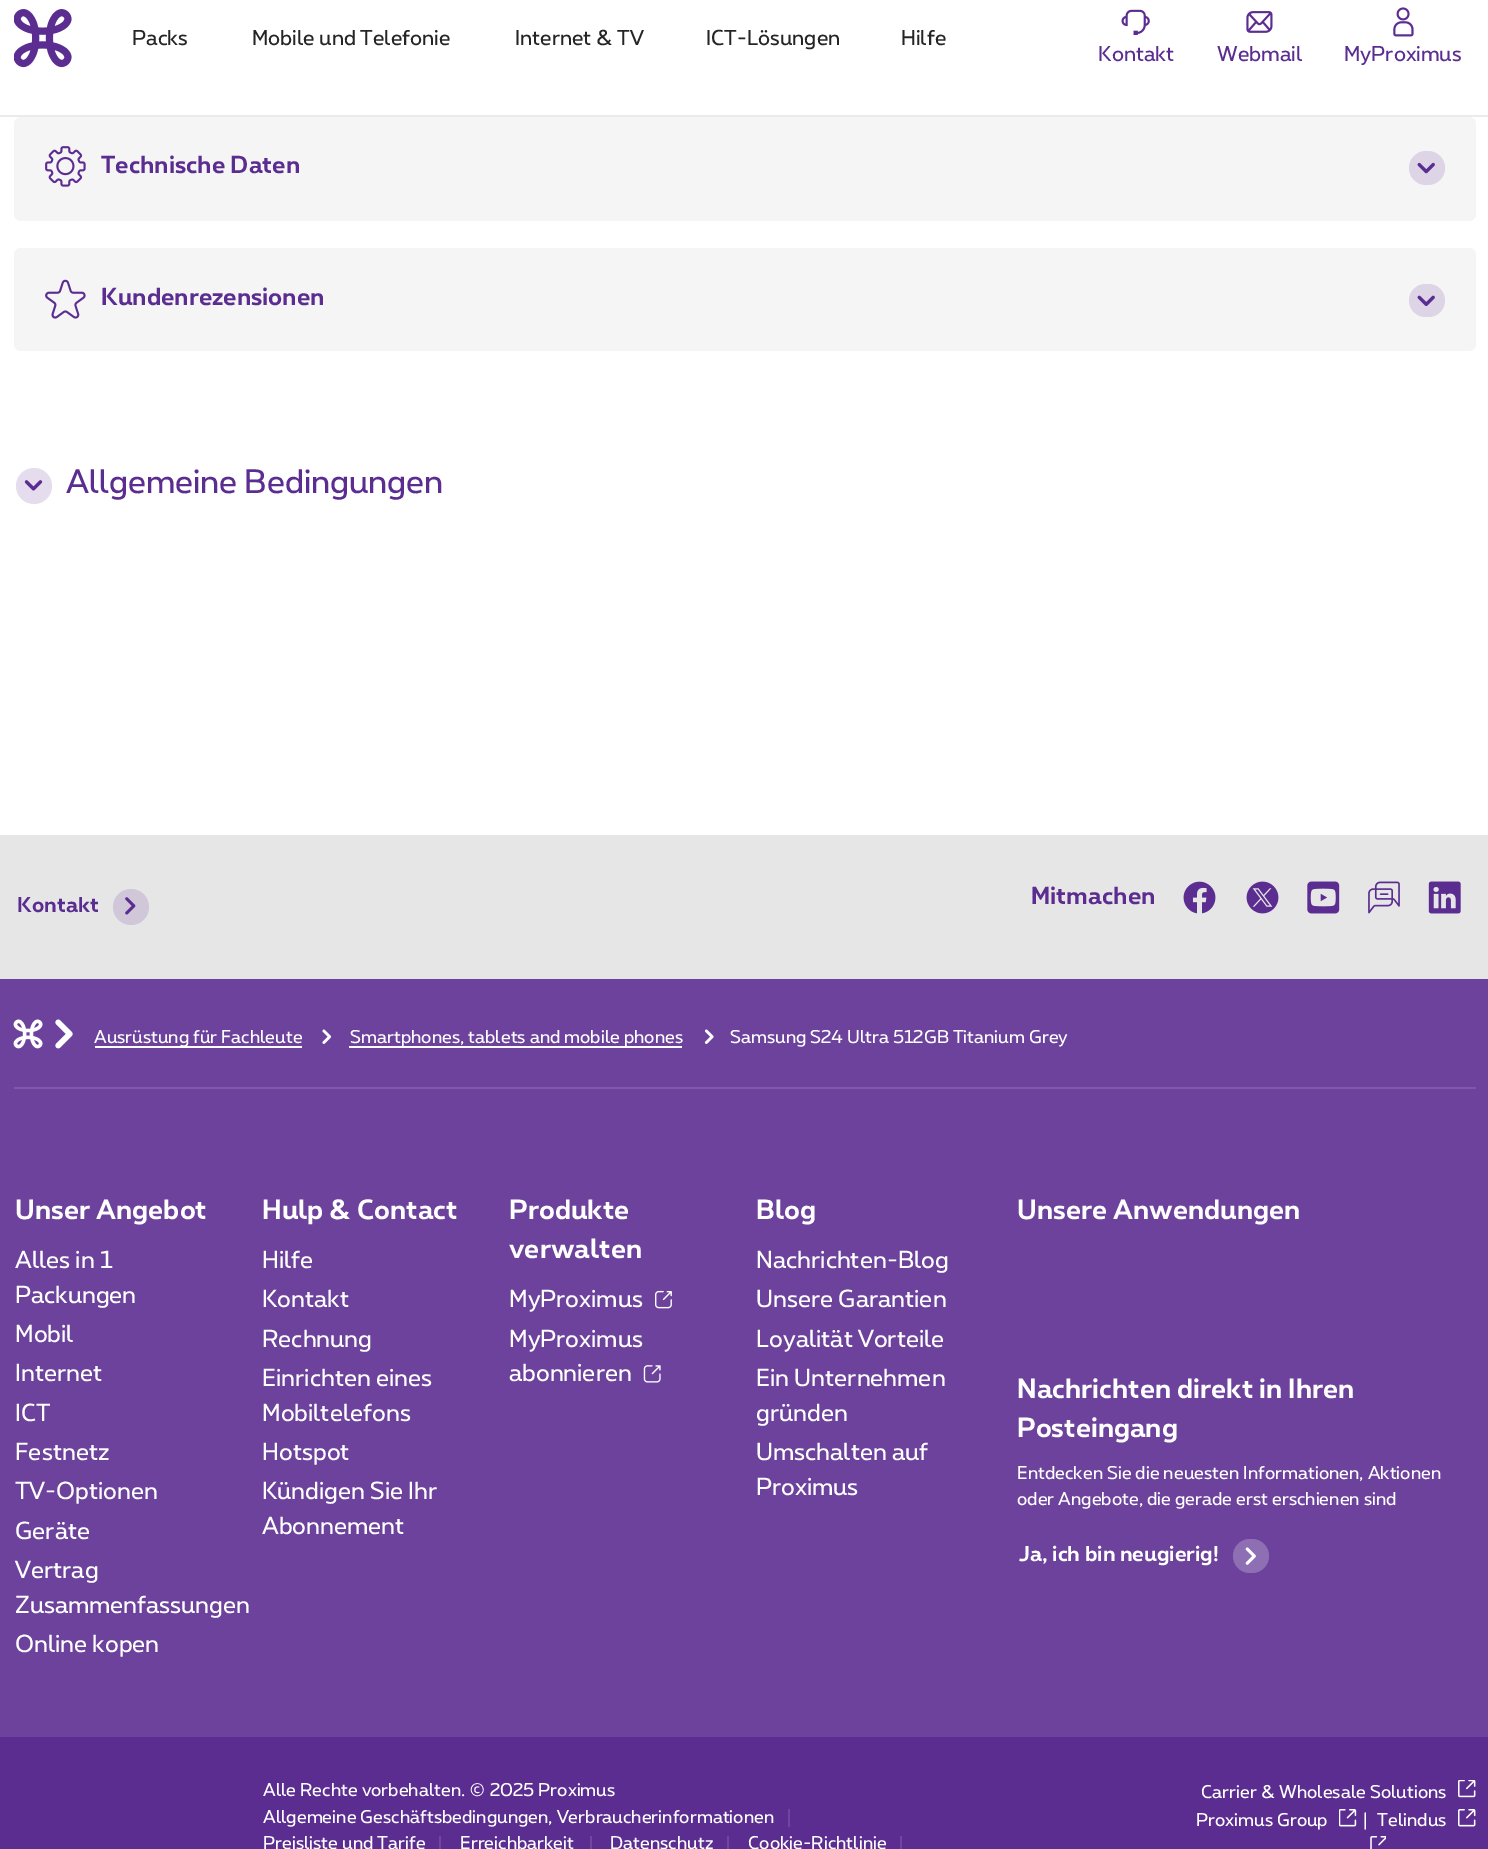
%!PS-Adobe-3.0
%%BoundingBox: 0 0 1488 1849
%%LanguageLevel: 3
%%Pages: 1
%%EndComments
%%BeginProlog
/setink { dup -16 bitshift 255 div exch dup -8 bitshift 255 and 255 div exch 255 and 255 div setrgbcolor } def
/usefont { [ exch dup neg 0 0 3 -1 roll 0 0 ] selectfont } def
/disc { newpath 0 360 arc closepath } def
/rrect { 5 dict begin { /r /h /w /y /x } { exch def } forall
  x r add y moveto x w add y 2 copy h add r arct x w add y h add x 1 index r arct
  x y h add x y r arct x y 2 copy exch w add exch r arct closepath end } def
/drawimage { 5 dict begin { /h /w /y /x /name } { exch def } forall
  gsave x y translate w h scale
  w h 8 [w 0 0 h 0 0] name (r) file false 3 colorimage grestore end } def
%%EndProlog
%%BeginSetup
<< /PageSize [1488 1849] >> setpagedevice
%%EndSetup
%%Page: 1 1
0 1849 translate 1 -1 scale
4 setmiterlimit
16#FFFFFF setink
0 0 1488 1849 rectfill
16#EBEBEB setink
0 115 1488 2 rectfill
(img1.raw) 14 9 58 59 drawimage
/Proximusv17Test-Regular 20.4 usefont
16#252525 setink
[
    [(Packs) 132 45]
    [(Mobile und Telefonie) 252 45]
    [(Internet & TV) 515 45]
    [(ICT-Lösungen) 706 45]
    [(Hilfe) 901 45]
] { aload pop moveto show } forall
(img2.raw) 1121 9 29 26 drawimage
16#5C2D91 setink
1098 61 moveto (Kontakt) show
(img3.raw) 1246 11 27 22 drawimage
1217 61 moveto (Webmail) show
(img4.raw) 1393 7 21 30 drawimage
1344 61 moveto (MyProximus) show
16#F5F5F5 setink
14 117 1462 104 7 rrect fill
(img5.raw) 45 146 41 41 drawimage
/Proximusv17Test-Bold 23.25 usefont
16#5C2D91 setink
101 173 moveto (Technische Daten) show
16#DDD5E5 setink
1409 151 36 34 17 rrect fill
(img6.raw) 1417 162 18 12 drawimage
16#F5F5F5 setink
14 248 1462 103 7 rrect fill
(img7.raw) 45 279 41 40 drawimage
16#5C2D91 setink
101 305 moveto (Kundenrezensionen) show
16#DDD5E5 setink
1409 284 36 33 16.5 rrect fill
(img8.raw) 1417 295 18 11 drawimage
16#E5DDED setink
34 486 18 disc fill
(img9.raw) 24 480 19 11 drawimage
/Proximusv17Test-Regular 32 usefont
16#5C2D91 setink
66 493 moveto (Allgemeine Bedingungen) show
16#E6E6E7 setink
0 835 1488 144 rectfill
/Proximusv17Test-Bold 20.4 usefont
16#5C2D91 setink
17 912 moveto (Kontakt) show
16#D0C8D9 setink
131 907 18 disc fill
(img10.raw) 125 897 11 18 drawimage
/Proximusv17Test-Bold 23.25 usefont
16#5C2D91 setink
1031 904 moveto (Mitmachen) show
(img11.raw) 1183 881 33 33 drawimage
(img12.raw) 1246 881 33 33 drawimage
(img13.raw) 1307 881 33 33 drawimage
(img14.raw) 1368 881 32 33 drawimage
(img15.raw) 1428 881 33 33 drawimage
16#6C429C setink
0 979 1488 758 rectfill
16#7E59A8 setink
14 1087 1462 2 rectfill
(img16.raw) 13 1019 30 30 drawimage
(img17.raw) 55 1019 18 30 drawimage
16#FFFFFF setink
95 1046 207 2 rectfill
/Proximusv17Test-Regular 17.45 usefont
94 1043 moveto (Ausrüstung für Fachleute) show
(img18.raw) 322 1029 10 15 drawimage
349 1046 333 2 rectfill
350 1043 moveto (Smartphones, tablets and mobile phones) show
(img19.raw) 704 1029 10 15 drawimage
730 1043 moveto (Samsung S24 Ultra 512GB Titanium Grey) show
/Proximusv17Test-Bold 26.25 usefont
15 1219 moveto (Unser Angebot) show
/Proximusv17Test-Regular 23.25 usefont
[
    [(Alles in 1) 15 1268]
    [(Packungen) 15 1303]
    [(Mobil) 15 1342]
    [(Internet) 15 1381]
    [(ICT) 15 1421]
    [(Festnetz) 15 1460]
    [(TV-Optionen) 15 1499]
    [(Geräte) 15 1539]
    [(Vertrag) 15 1578]
    [(Zusammenfassungen) 15 1613]
    [(Online kopen) 15 1652]
] { aload pop moveto show } forall
/Proximusv17Test-Bold 26.25 usefont
262 1219 moveto (Hulp & Contact) show
/Proximusv17Test-Regular 23.25 usefont
[
    [(Hilfe) 262 1268]
    [(Kontakt) 262 1307]
    [(Rechnung) 262 1347]
    [(Einrichten eines) 262 1386]
    [(Mobiltelefons) 262 1421]
    [(Hotspot) 262 1460]
    [(Kündigen Sie Ihr) 262 1499]
    [(Abonnement) 262 1534]
] { aload pop moveto show } forall
/Proximusv17Test-Bold 26.25 usefont
509 1219 moveto (Produkte) show
509 1258 moveto (verwalten) show
/Proximusv17Test-Regular 23.25 usefont
509 1307 moveto (MyProximus) show
(img20.raw) 655 1290 17 19 drawimage
509 1347 moveto (MyProximus) show
509 1381 moveto (abonnieren) show
(img21.raw) 643 1365 18 18 drawimage
/Proximusv17Test-Bold 26.25 usefont
756 1219 moveto (Blog) show
/Proximusv17Test-Regular 23.25 usefont
[
    [(Nachrichten-Blog) 756 1268]
    [(Unsere Garantien) 756 1307]
    [(Loyalität Vorteile) 756 1347]
    [(Ein Unternehmen) 756 1386]
    [(gründen) 756 1421]
    [(Umschalten auf) 756 1460]
    [(Proximus) 756 1495]
] { aload pop moveto show } forall
/Proximusv17Test-Bold 26.25 usefont
[
    [(Unsere Anwendungen) 1017 1219]
    [(Nachrichten direkt in Ihren) 1017 1398]
    [(Posteingang) 1017 1437]
] { aload pop moveto show } forall
/Proximusv17Test-Regular 17.45 usefont
1017 1479 moveto (Entdecken Sie die neuesten Informationen, Aktionen) show
1017 1505 moveto (oder Angebote, die gerade erst erschienen sind) show
/Proximusv17Test-Bold 20.4 usefont
1019 1561 moveto (Ja, ich bin neugierig!) show
16#8F6FB4 setink
1233 1539 36 34 17 rrect fill
(img22.raw) 1245 1547 11 18 drawimage
16#5C2D91 setink
0 1737 1488 112 rectfill
/Proximusv17Test-Regular 17.45 usefont
16#FFFFFF setink
263 1796 moveto (Alle Rechte vorbehalten. © 2025 Proximus) show
263 1823 moveto (Allgemeine Geschäftsbedingungen, Verbraucherinformationen) show
16#70469E setink
788 1809 2 18 rectfill
16#FFFFFF setink
263 1849 moveto (Preisliste und Tarife) show
16#70469E setink
439 1836 2 13 rectfill
16#FFFFFF setink
460 1849 moveto (Erreichbarkeit) show
16#70469E setink
590 1836 2 13 rectfill
16#FFFFFF setink
610 1849 moveto (Datenschutz) show
16#70469E setink
727 1836 2 13 rectfill
16#FFFFFF setink
748 1849 moveto (Cookie-Richtlinie) show
16#70469E setink
900 1836 2 13 rectfill
16#FFFFFF setink
1201 1798 moveto (Carrier & Wholesale Solutions) show
(img23.raw) 1458 1780 18 18 drawimage
1196 1826 moveto (Proximus Group) show
(img24.raw) 1339 1809 18 18 drawimage
1361 1826 moveto (|) show
1377 1826 moveto (Telindus) show
(img25.raw) 1458 1809 18 18 drawimage
(img26.raw) 1370 1836 16 13 drawimage
showpage
%%EOF
